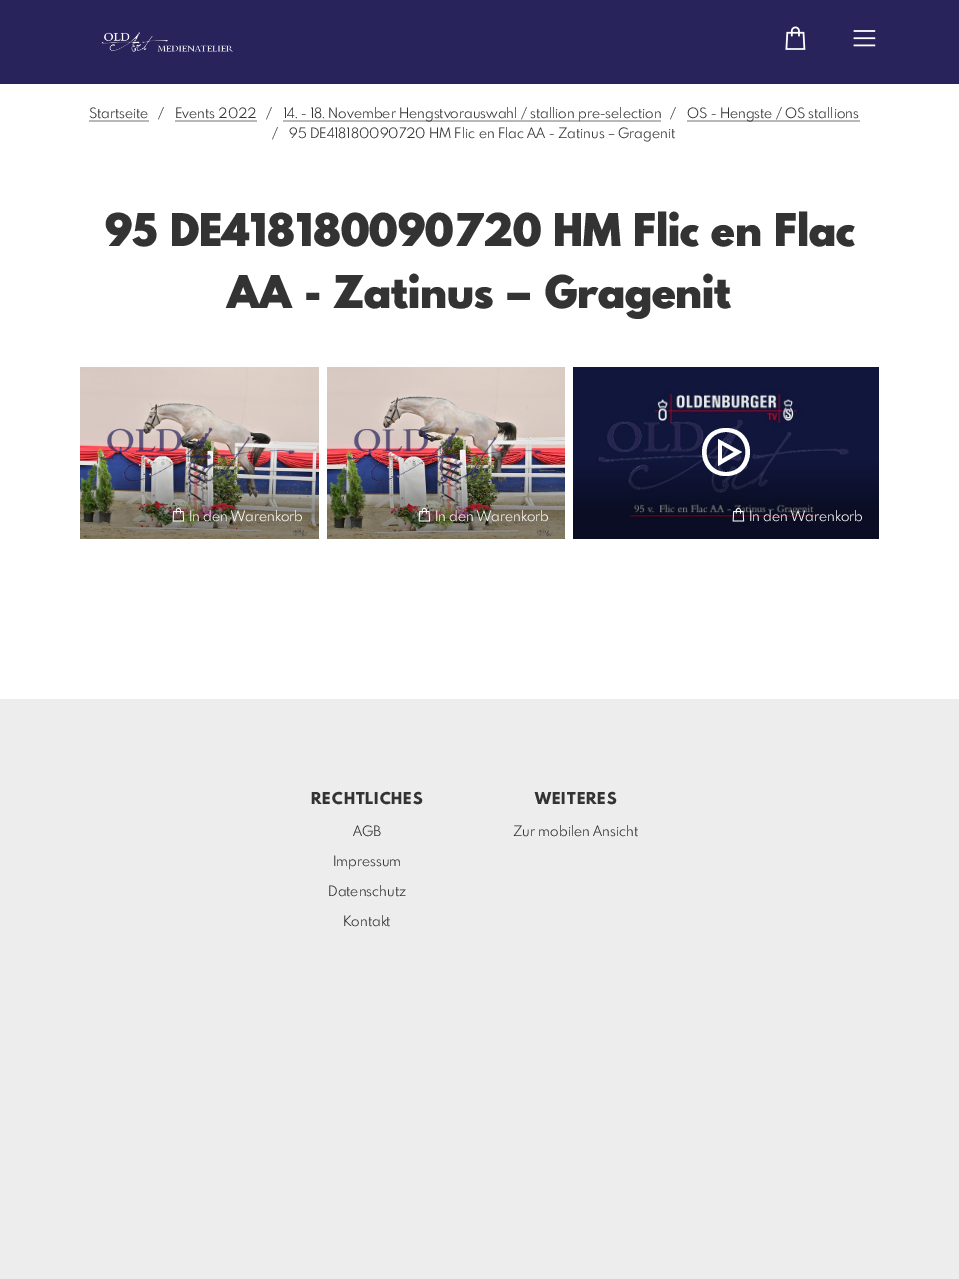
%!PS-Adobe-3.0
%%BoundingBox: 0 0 959 1279
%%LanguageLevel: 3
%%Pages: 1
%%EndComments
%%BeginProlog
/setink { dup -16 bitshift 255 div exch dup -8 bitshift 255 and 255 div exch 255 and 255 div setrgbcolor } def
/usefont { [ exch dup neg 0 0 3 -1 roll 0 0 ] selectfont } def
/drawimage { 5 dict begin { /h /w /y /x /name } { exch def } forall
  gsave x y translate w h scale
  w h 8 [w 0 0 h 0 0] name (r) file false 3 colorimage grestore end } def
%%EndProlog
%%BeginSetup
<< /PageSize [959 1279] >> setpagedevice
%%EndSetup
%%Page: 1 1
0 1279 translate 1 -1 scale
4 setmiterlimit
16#EDEDED setink
0 0 959 1279 rectfill
16#29235C setink
0 0 959 84 rectfill
(img1.raw) 101 32 132 20 drawimage
(img2.raw) 785 26 21 24 drawimage
(img3.raw) 853 30 23 17 drawimage
16#FFFFFF setink
0 84 959 615 rectfill
/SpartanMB-Regular 14 usefont
16#333333 setink
89 118 moveto (Startseite) show
16#B8B8B8 setink
89 120 60 2 rectfill
16#333333 setink
158 118 moveto (/) show
175 118 moveto (Events 2022) show
16#B8B8B8 setink
175 120 82 2 rectfill
16#333333 setink
266 118 moveto (/) show
16#B8B8B8 setink
283 120 378 2 rectfill
16#333333 setink
283 118 moveto (14. - 18. November Hengstvorauswahl / stallion pre-selection) show
670 118 moveto (/) show
16#B8B8B8 setink
687 120 173 2 rectfill
16#333333 setink
[
    [(OS - Hengste / OS stallions) 687 118]
    [(/) 272 138]
    [(95 DE418180090720 HM Flic en Flac AA - Zatinus – Gragenit) 289 138]
] { aload pop moveto show } forall
/SpartanMB-Black 44 usefont
105 246 moveto (95 DE418180090720 HM Flic en Flac) show
227 308 moveto (AA - Zatinus – Gragenit) show
(img4.raw) 80 367 239 172 drawimage
(img5.raw) 172 507 13 15 drawimage
/SpartanMB-Regular 14 usefont
16#FCFAFA setink
189 521 moveto (In den Warenkorb) show
(img6.raw) 327 367 238 172 drawimage
(img7.raw) 418 507 13 15 drawimage
435 521 moveto (In den Warenkorb) show
(img8.raw) 573 367 306 172 drawimage
16#FFFFFF setink
726 428 moveto 694 428 694 476 726 476 curveto 758 476 758 428 726 428 curveto closepath 726 432 moveto 752 432 752 472 726 472 curveto 700 472 700 432 726 432 curveto closepath 718 439 moveto 718 466 lineto 742 452 lineto closepath 722 445 moveto 734 452 lineto 722 459 lineto closepath fill
(img9.raw) 732 507 13 15 drawimage
16#FCFAFA setink
749 521 moveto (In den Warenkorb) show
/SpartanMB-ExtraBold 16 usefont
16#333333 setink
311 804 moveto 1 0 (RECHTLICHES) ashow
/SpartanMB-Regular 14 usefont
[
    [(AGB) 353 836]
    [(Impressum) 333 866]
    [(Datenschutz) 328 896]
    [(Kontakt) 343 926]
] { aload pop moveto show } forall
/SpartanMB-ExtraBold 16 usefont
535 804 moveto 1 0 (WEITERES) ashow
/SpartanMB-Regular 14 usefont
513 836 moveto (Zur mobilen Ansicht) show
showpage
%%EOF
